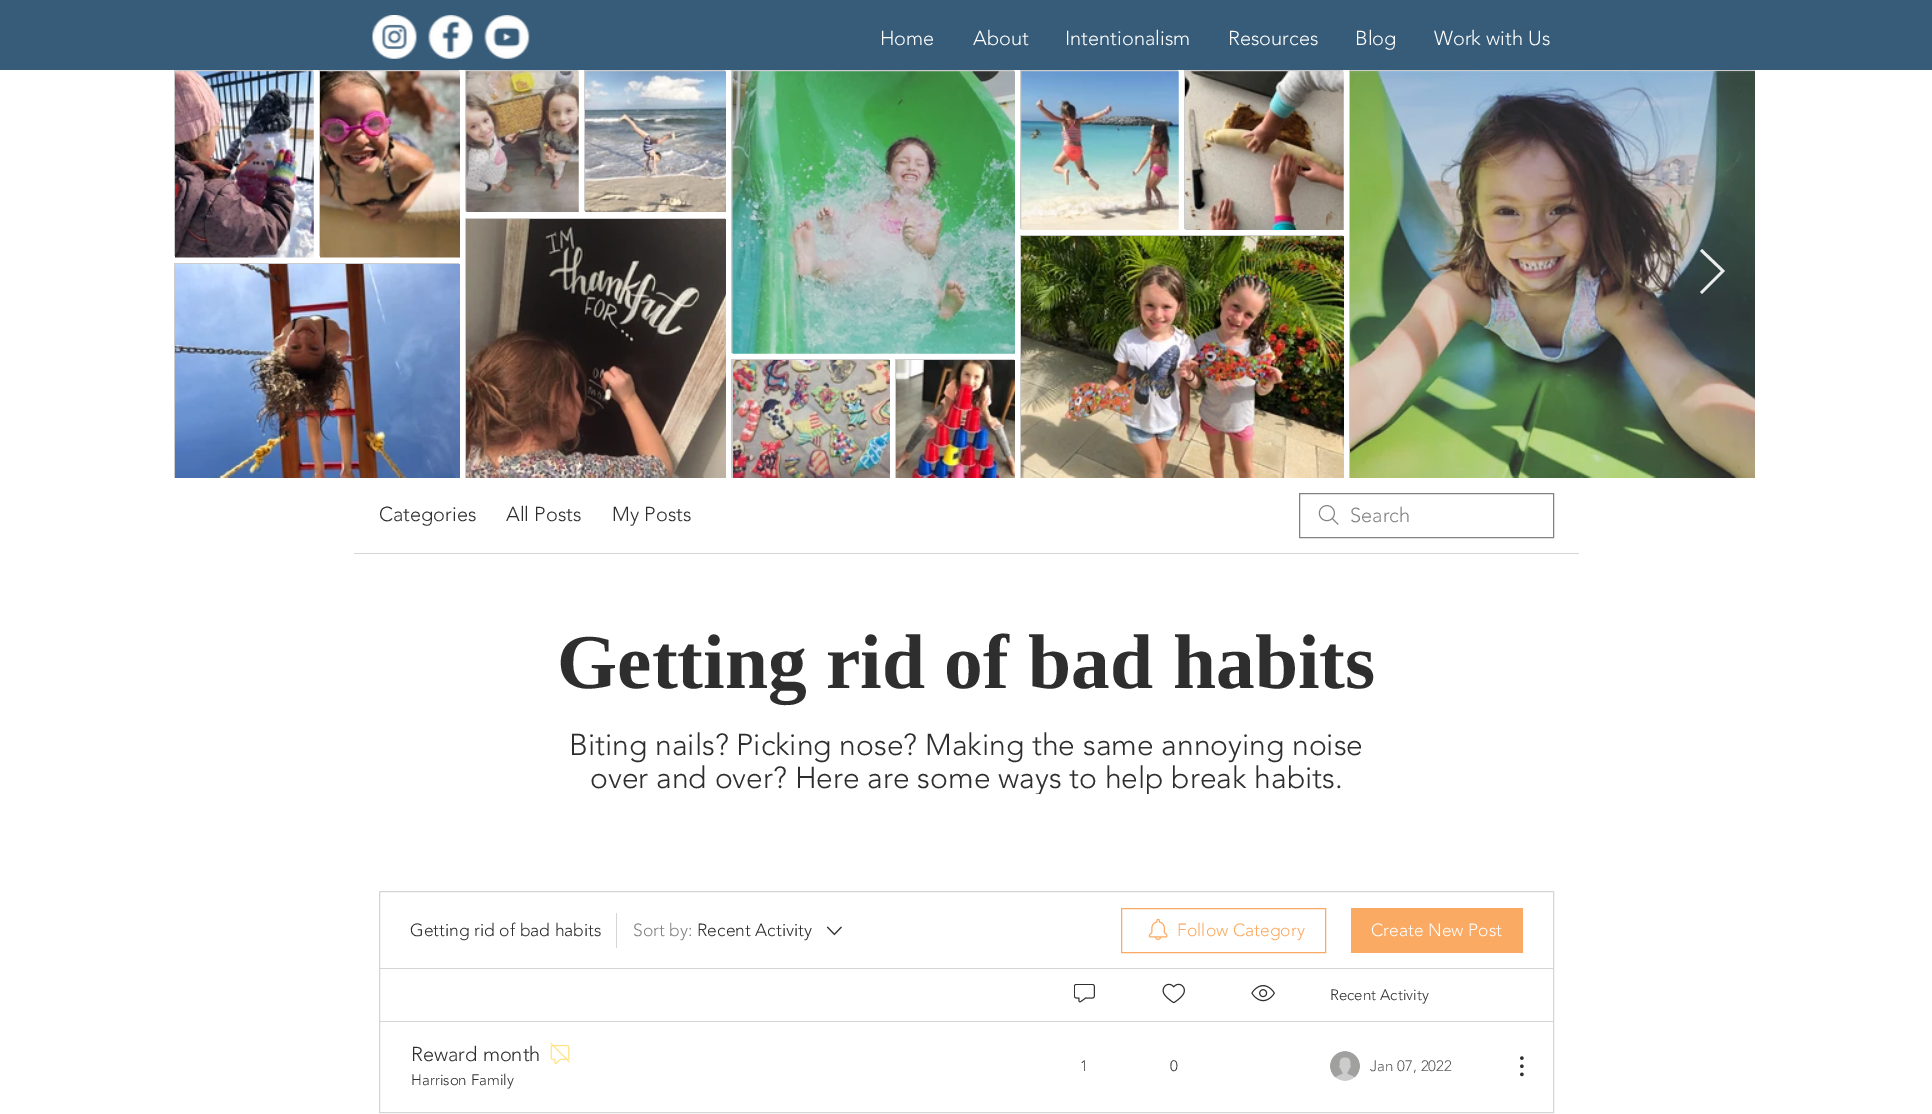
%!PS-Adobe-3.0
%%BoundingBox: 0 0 1932 1114
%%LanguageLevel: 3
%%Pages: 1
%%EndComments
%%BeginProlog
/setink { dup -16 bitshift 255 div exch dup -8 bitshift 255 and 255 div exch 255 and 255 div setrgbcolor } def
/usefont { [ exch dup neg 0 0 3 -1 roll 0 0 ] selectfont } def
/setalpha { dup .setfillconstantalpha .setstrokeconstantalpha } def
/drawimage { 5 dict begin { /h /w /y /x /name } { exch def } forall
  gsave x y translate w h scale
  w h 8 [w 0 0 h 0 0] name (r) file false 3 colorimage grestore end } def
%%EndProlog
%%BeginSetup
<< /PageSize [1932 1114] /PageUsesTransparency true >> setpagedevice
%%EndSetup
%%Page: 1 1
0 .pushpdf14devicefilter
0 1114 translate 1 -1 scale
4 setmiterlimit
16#FFFFFF setink
0 0 1932 1114 rectfill
16#375C79 setink
0 0 1932 70 rectfill
(img1.raw) 372 15 45 44 drawimage
(img2.raw) 428 15 45 44 drawimage
(img3.raw) 484 15 46 44 drawimage
/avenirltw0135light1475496-Light 20 usefont
16#FFFFFF setink
[
    [(Home) 880 45]
    [(About) 973 45]
    [(Intentionalism) 1065 45]
    [(Resources) 1228 45]
    [(Blog) 1355 45]
    [(Work with Us) 1434 45]
] { aload pop moveto show } forall
16#CCCCCC setink
174 70 139 186 rectfill
(img4.raw) 175 71 139 187 drawimage
319 70 140 186 rectfill
(img5.raw) 320 71 140 187 drawimage
174 263 285 215 rectfill
(img6.raw) 175 264 285 214 drawimage
465 70 113 141 rectfill
(img7.raw) 466 71 113 141 drawimage
584 70 141 141 rectfill
(img8.raw) 585 71 141 141 drawimage
465 218 260 260 rectfill
(img9.raw) 466 219 260 259 drawimage
731 70 283 283 rectfill
(img10.raw) 732 71 283 283 drawimage
731 359 158 119 rectfill
(img11.raw) 733 360 157 118 drawimage
895 359 119 119 rectfill
(img12.raw) 896 360 119 118 drawimage
1020 70 158 159 rectfill
(img13.raw) 1021 71 158 159 drawimage
1184 70 159 159 rectfill
(img14.raw) 1185 71 159 159 drawimage
1020 235 323 243 rectfill
(img15.raw) 1021 236 323 242 drawimage
1349 70 406 408 rectfill
(img16.raw) 1350 71 405 407 drawimage
0.9 setalpha
16#FFFFFF setink
1700 251 moveto 1702 249 lineto 1725 271 lineto 1702 294 lineto 1700 292 lineto 1721 271 lineto closepath fill
1 setalpha
16#D5D5D5 setink
354 553 1225 1 rectfill
16#2F2E2E setink
[
    [(Categories) 379 521]
    [(All Posts) 506 521]
    [(My Posts) 612 521]
] { aload pop moveto show } forall
(img17.raw) 1318 505 21 20 drawimage
16#828282 setink
1299.5 493.5 254 44 rectstroke
1350 522 moveto (Search) show
/LiberationSerif-Bold 77.5 usefont
16#2F2E2E setink
557 688 moveto (Getting rid of bad habits) show
/avenirltw0135light1475496-Light 30 usefont
569 755 moveto (Biting nails? Picking nose? Making the same annoying noise) show
gsave
541 729 850 65 rectclip
590 788 moveto (over and over? Here are some ways to help break habits.) show
grestore
16#D5D5D5 setink
379.5 891.5 1174 221 rectstroke
/avenirltw0135light1475496-Light 17.5 usefont
16#2F2E2E setink
410 936 moveto (Getting rid of bad habits) show
16#D5D5D5 setink
616 913 1 35 rectfill
16#828282 setink
633 936 moveto (Sort by:) show
16#2F2E2E setink
697 936 moveto (Recent Activity) show
(img18.raw) 826 926 16 10 drawimage
16#FAAA62 setink
1121.5 908.5 204 44 rectstroke
(img19.raw) 1148 918 20 22 drawimage
1177 936 moveto (Follow Category) show
1351 908 172 45 rectfill
16#FFFFFF setink
1371 936 moveto (Create New Post) show
16#D5D5D5 setink
380 968 1173 1 rectfill
(img20.raw) 1074 984 21 19 drawimage
(img21.raw) 1162 983 23 21 drawimage
(img22.raw) 1251 985 24 17 drawimage
/avenirltw0135light1475496-Light 15 usefont
16#2F2E2E setink
1330 1000 moveto (Recent Activity) show
16#D5D5D5 setink
380 1021 1173 1 rectfill
/avenirltw0135light1475496-Light 20 usefont
16#2F2E2E setink
411 1061 moveto (Reward month) show
(img23.raw) 550 1043 20 22 drawimage
/avenirltw0135light1475496-Light 15 usefont
[
    [(Harrison Family) 411 1085]
    [(1) 1080 1071]
    [(0) 1170 1071]
] { aload pop moveto show } forall
(img24.raw) 1330 1051 30 30 drawimage
16#595858 setink
1370 1071 moveto (Jan 07, 2022) show
(img25.raw) 1520 1056 4 21 drawimage
.poppdf14devicefilter showpage
%%EOF
